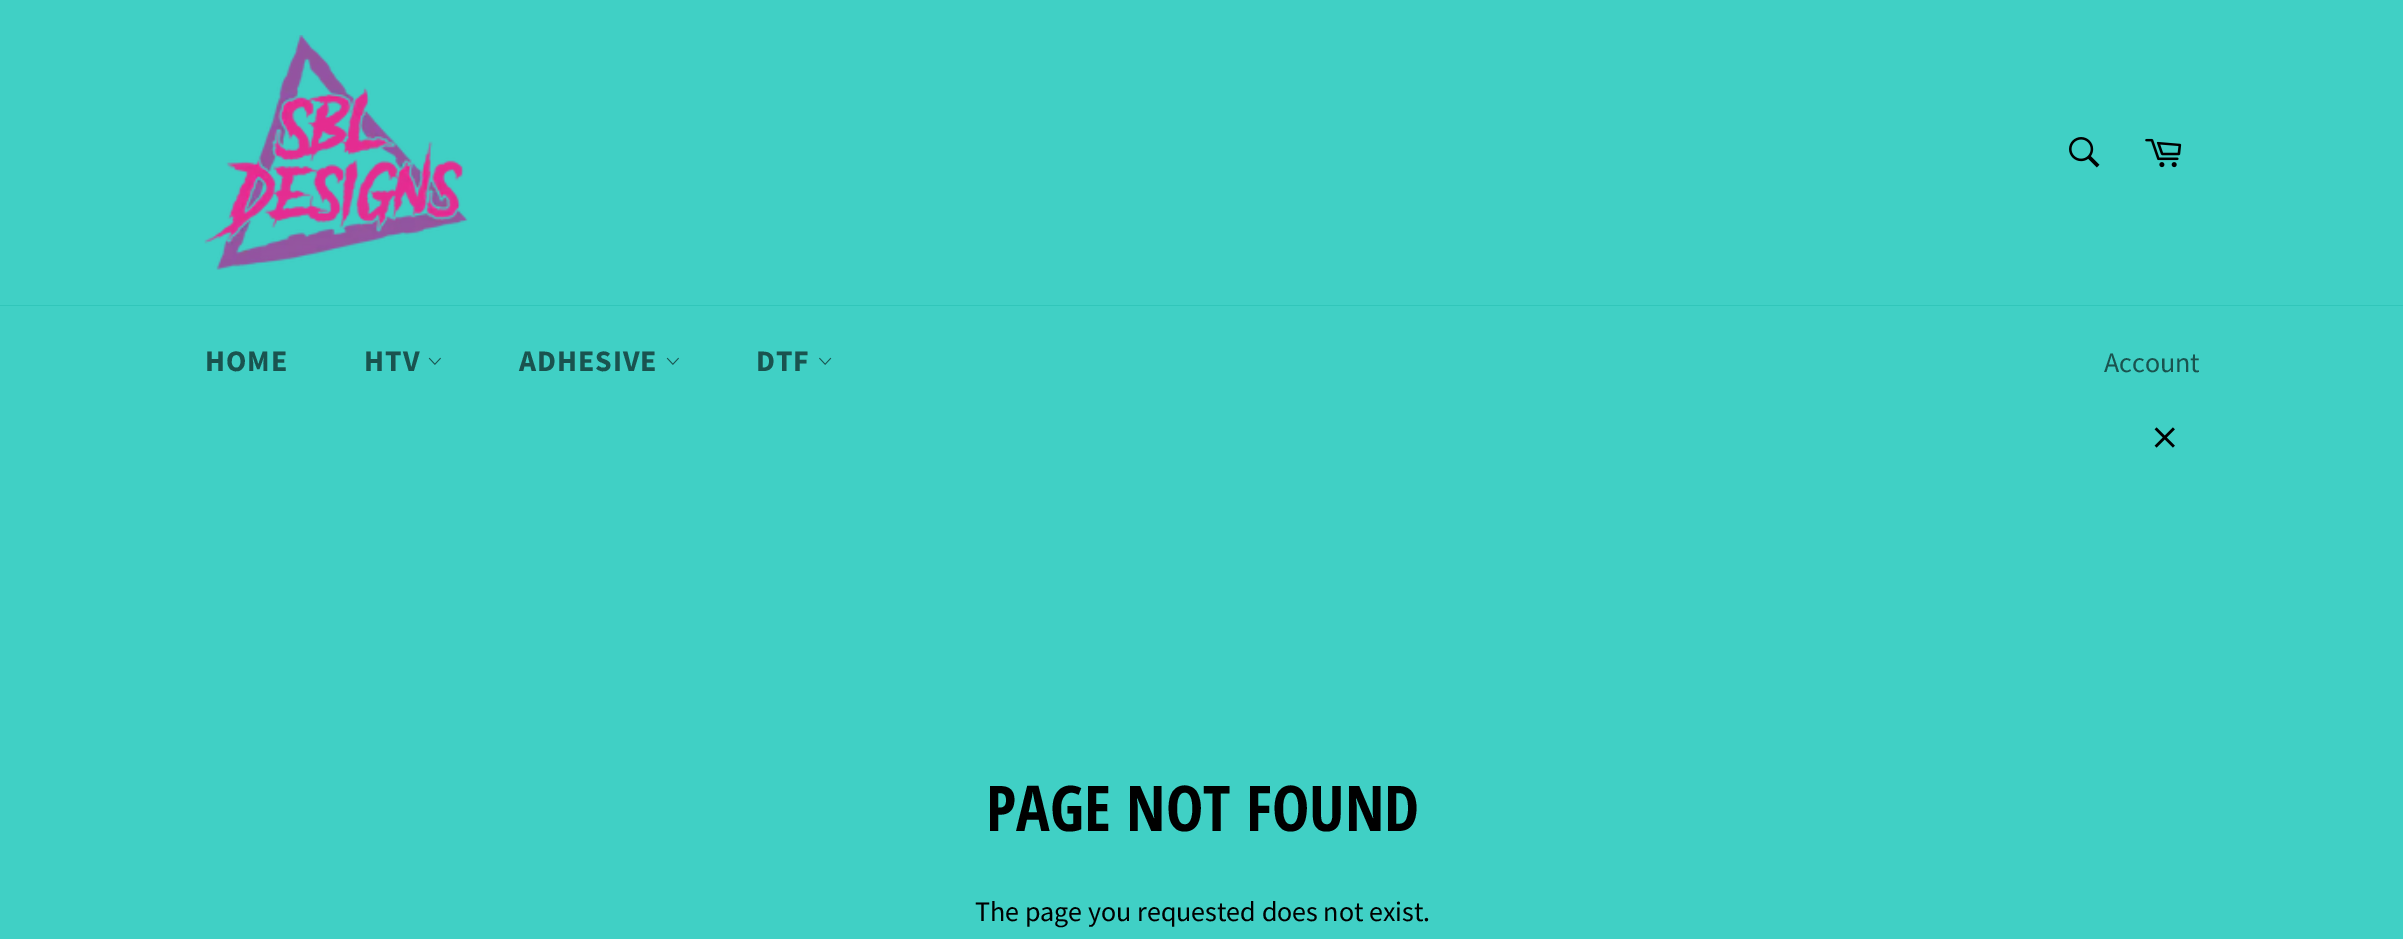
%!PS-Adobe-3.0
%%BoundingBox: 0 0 2403 939
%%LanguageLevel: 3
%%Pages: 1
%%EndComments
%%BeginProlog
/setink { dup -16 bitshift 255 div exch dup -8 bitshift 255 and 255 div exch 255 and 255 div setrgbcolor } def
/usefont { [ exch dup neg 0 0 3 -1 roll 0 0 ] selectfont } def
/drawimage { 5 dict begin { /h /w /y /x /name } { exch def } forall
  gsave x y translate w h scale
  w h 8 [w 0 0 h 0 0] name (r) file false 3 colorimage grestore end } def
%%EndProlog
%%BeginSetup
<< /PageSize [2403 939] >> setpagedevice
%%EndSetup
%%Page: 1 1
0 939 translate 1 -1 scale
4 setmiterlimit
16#40D0C5 setink
0 0 2403 939 rectfill
(img1.raw) 204 35 264 235 drawimage
(img2.raw) 2069 137 31 31 drawimage
(img3.raw) 2145 138 37 30 drawimage
16#31C6BA setink
0 305 2403 1 rectfill
/SourceSansPro-Bold 29.75 usefont
16#1A534F setink
205 371 moveto 1 0 (HOME) ashow
364 371 moveto 1 0 (HTV) ashow
(img4.raw) 428 357 13 8 drawimage
519 371 moveto 1 0 (ADHESIVE) ashow
(img4.raw) 666 357 13 8 drawimage
756 371 moveto 1 0 (DTF) ashow
(img5.raw) 819 357 13 8 drawimage
/SourceSansPro-Regular 28 usefont
2104 372 moveto (Account) show
(img6.raw) 2154 427 21 21 drawimage
/OpenSansCondensed-Bold 63 usefont
16#000000 setink
986 831 moveto (PAGE NOT FOUND) show
/SourceSansPro-Regular 28 usefont
975 921 moveto (The page you requested does not exist.) show
showpage
%%EOF
